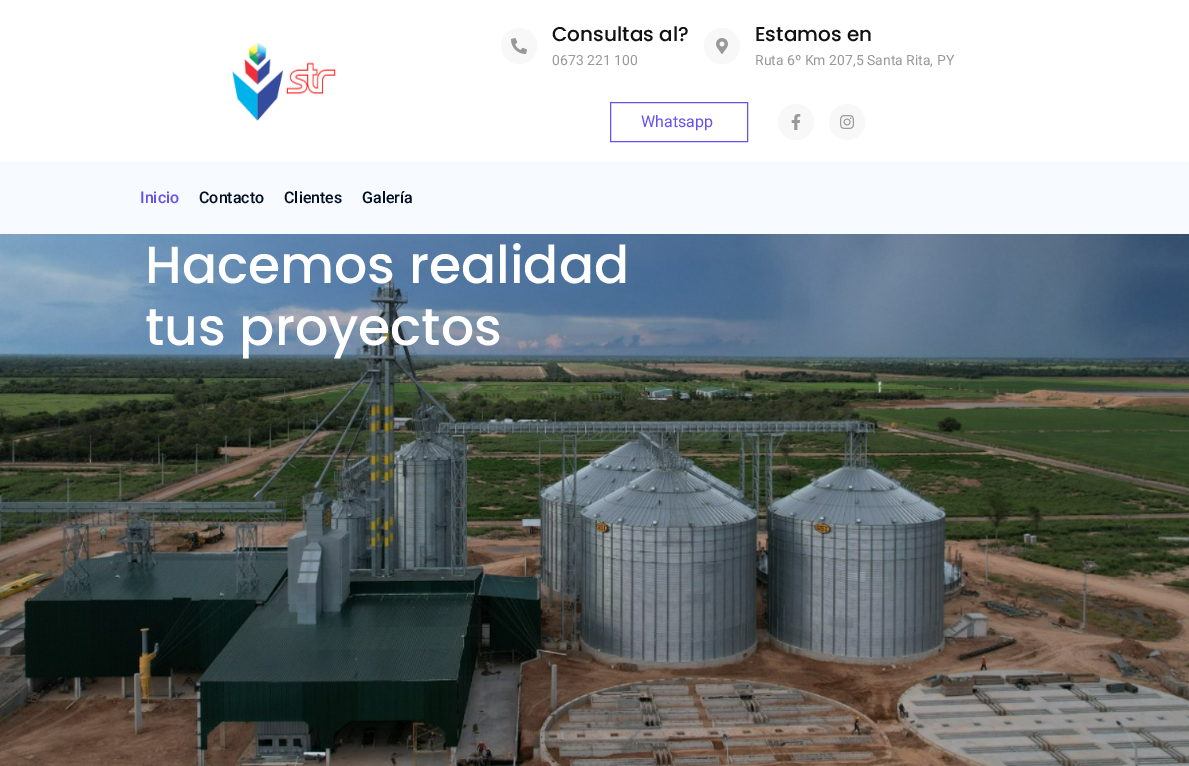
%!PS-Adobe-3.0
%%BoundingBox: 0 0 1189 766
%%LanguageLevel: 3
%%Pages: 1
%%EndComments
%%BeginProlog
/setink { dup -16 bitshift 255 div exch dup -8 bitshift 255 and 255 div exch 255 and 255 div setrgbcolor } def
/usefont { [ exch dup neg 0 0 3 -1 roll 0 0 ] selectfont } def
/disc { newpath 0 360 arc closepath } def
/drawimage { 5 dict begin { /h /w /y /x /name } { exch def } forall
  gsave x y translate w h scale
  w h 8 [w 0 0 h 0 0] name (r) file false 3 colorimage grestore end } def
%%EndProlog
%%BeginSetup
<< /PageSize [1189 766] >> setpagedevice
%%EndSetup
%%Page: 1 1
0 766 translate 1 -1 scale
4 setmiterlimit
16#FFFFFF setink
0 0 1189 766 rectfill
(img1.raw) 232 42 104 79 drawimage
16#F8F8F8 setink
519 46 18 disc fill
(img2.raw) 511 38 16 16 drawimage
/Poppins-Medium 20 usefont
16#111111 setink
552 41 moveto (Consultas al?) show
/Roboto-Regular 14 usefont
16#999999 setink
552 65 moveto (0673 221 100) show
16#F8F8F8 setink
722 46 18 disc fill
(img3.raw) 716 38 12 16 drawimage
/Poppins-Medium 20 usefont
16#111111 setink
755 41 moveto (Estamos en) show
/Roboto-Regular 14 usefont
16#999999 setink
755 65 moveto (Ruta 6º Km 207,5 Santa Rita, PY) show
16#6852ED setink
610.5 102.5 137 39 rectstroke
/Roboto-Regular 16 usefont
641 127 moveto (Whatsapp) show
16#F8F8F8 setink
796 122 18 disc fill
(img4.raw) 791 114 10 16 drawimage
847 122 18 disc fill
(img5.raw) 840 115 14 14 drawimage
16#F7FAFF setink
0 162 1189 72 rectfill
/Roboto-Medium 16 usefont
16#6852ED setink
140 203 moveto (Inicio) show
16#020D26 setink
[
    [(Contacto) 199 203]
    [(Clientes) 284 203]
    [(Galería) 362 203]
] { aload pop moveto show } forall
(img6.raw) 0 234 1189 532 drawimage
/Poppins-Medium 52 usefont
16#FFFFFF setink
145 283 moveto (Hacemos realidad) show
145 345 moveto (tus proyectos) show
showpage
%%EOF
